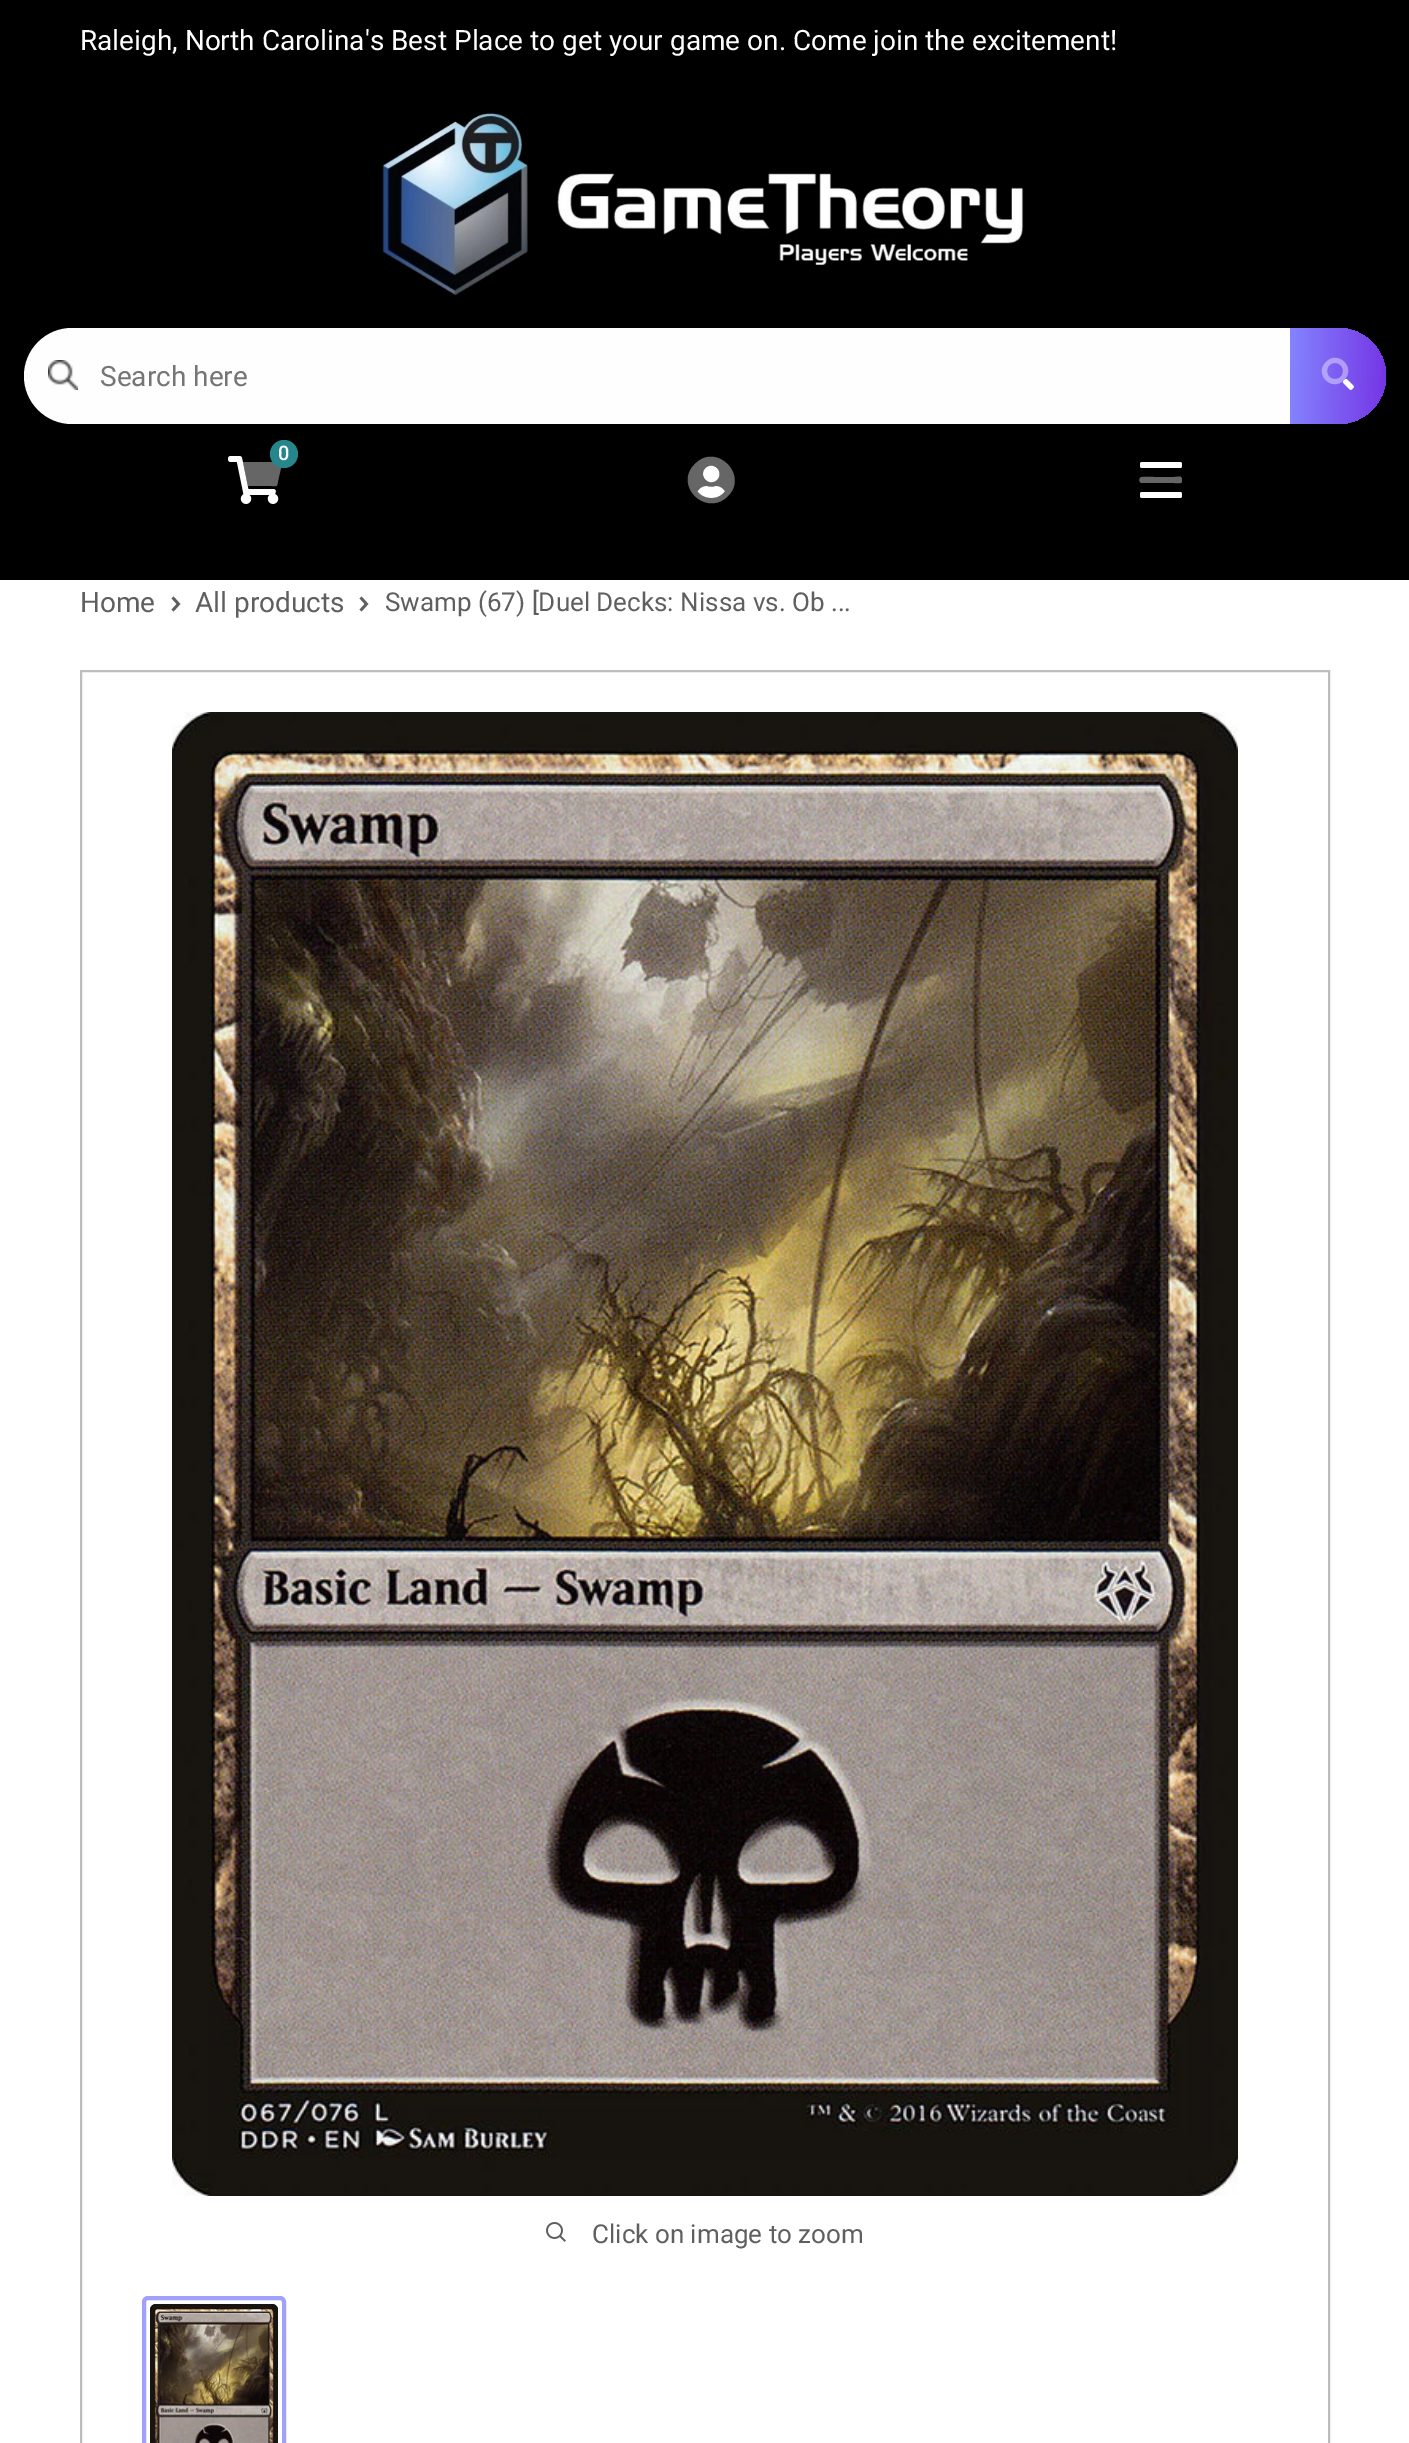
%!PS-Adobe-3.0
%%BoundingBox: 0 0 1409 2443
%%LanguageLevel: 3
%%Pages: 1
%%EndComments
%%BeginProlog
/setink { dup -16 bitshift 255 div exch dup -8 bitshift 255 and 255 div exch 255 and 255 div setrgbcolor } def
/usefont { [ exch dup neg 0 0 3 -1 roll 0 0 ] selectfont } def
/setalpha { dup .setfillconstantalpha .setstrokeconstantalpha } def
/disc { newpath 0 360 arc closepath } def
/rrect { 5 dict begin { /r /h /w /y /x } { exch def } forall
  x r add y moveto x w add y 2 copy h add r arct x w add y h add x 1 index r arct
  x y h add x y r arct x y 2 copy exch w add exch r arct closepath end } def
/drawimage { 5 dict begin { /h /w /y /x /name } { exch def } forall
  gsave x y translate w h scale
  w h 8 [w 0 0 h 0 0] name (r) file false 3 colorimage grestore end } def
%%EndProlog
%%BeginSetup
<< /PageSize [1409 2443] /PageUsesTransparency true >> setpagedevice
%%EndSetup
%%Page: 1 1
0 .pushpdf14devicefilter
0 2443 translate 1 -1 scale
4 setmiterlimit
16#000000 setink
0 0 1409 2443 rectfill
/Roboto-Regular 28 usefont
16#FFFFFF setink
80 50 moveto (Raleigh, North Carolina's Best Place to get your game on. Come join the excitement!) show
(img1.raw) 382 113 642 183 drawimage
16#FEFEFE setink
24 328 1362 96 48 rrect fill
(img2.raw) 48 360 30 30 drawimage
16#757575 setink
100 386 moveto (Search here) show
gsave 1290 328 moveto 1338 328 lineto 1364.5 328 1386 349.5 1386 376 curveto 1386 402.5 1364.5 424 1338 424 curveto 1290 424 lineto closepath clip newpath
<< /ShadingType 2 /ColorSpace /DeviceRGB /Coords [1387 377 1289 375] /Extend [true true] /Function << /FunctionType 2 /Domain [0 1] /C0 [0.459 0.208 0.898] /C1 [0.518 0.518 1] /N 1 >> >> shfill grestore
(img3.raw) 1343 379 11 11 drawimage
0.4 setalpha
16#FFFFFF setink
1335 363 moveto 1324.5 363 1324.5 379 1335 379 curveto 1345.5 379 1345.5 363 1335 363 curveto closepath 1326 362 moveto 1338 349.5 1356.5 368 1344 380 curveto 1332 392.5 1313.5 374 1326 362 curveto closepath fill
1 setalpha
(img4.raw) 228 456 51 48 drawimage
0.4 setalpha
16#FEFEFE setink
280 462 moveto 283 462 281.5 466.5 281 468 curveto 278 481 lineto 277 487 277.5 486 271 486 curveto 248 486 lineto 243 462 lineto closepath fill
1 setalpha
16#25878C setink
284 454 14 disc fill
/Roboto-Medium 20 usefont
16#FFFFFF setink
278 460 moveto (0) show
(img5.raw) 697 465 28 33 drawimage
0.4 setalpha
16#FEFEFE setink
695 464 moveto 716 442 749 475 728 496 curveto 706 518 673 485 695 464 curveto closepath 717 468 moveto 710 461 698 472 705 480 curveto 713 487 725 476 717 468 curveto closepath 698 492 moveto 705 500 718 500 725 492 curveto 723 488 719 486 715 486 curveto 711 487 lineto 707 486 lineto 703 486 699 488 698 492 curveto closepath fill
1 setalpha
(img6.raw) 1140 462 42 36 drawimage
16#666666 setink
1142 483 moveto 1139 483 1139 479 1140 478 curveto 1141 476 1153 477 1154 477 curveto 1174 477 lineto 1179 477 1182 475 1182 480 curveto 1182 482 lineto 1181 484 1174 483 1174 483 curveto closepath fill
16#FFFFFF setink
0 580 1409 1863 rectfill
/Roboto-Regular 28 usefont
16#5F5F5F setink
80 612 moveto (Home) show
2.7 setlinewidth
2 setlinecap
173.5 598.5 moveto 178.5 604 lineto 173.5 609.5 lineto stroke
195 612 moveto (All products) show
361.5 598.5 moveto 366.5 604 lineto 361.5 609.5 lineto stroke
/Roboto-Regular 26 usefont
385 611 moveto (Swamp \(67\) [Duel Decks: Nissa vs. Ob ...) show
16#BDBDBD setink
2 setlinewidth
0 setlinecap
81 671 1248 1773 rectstroke
(img7.raw) 172 712 1066 1484 drawimage
(img8.raw) 546 2222 20 20 drawimage
16#5F5F5F setink
592 2243 moveto (Click on image to zoom) show
16#A1A1FC setink
4 setlinewidth
144 2298 140 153 4 rrect stroke
(img9.raw) 150 2304 128 139 drawimage
.poppdf14devicefilter showpage
%%EOF
